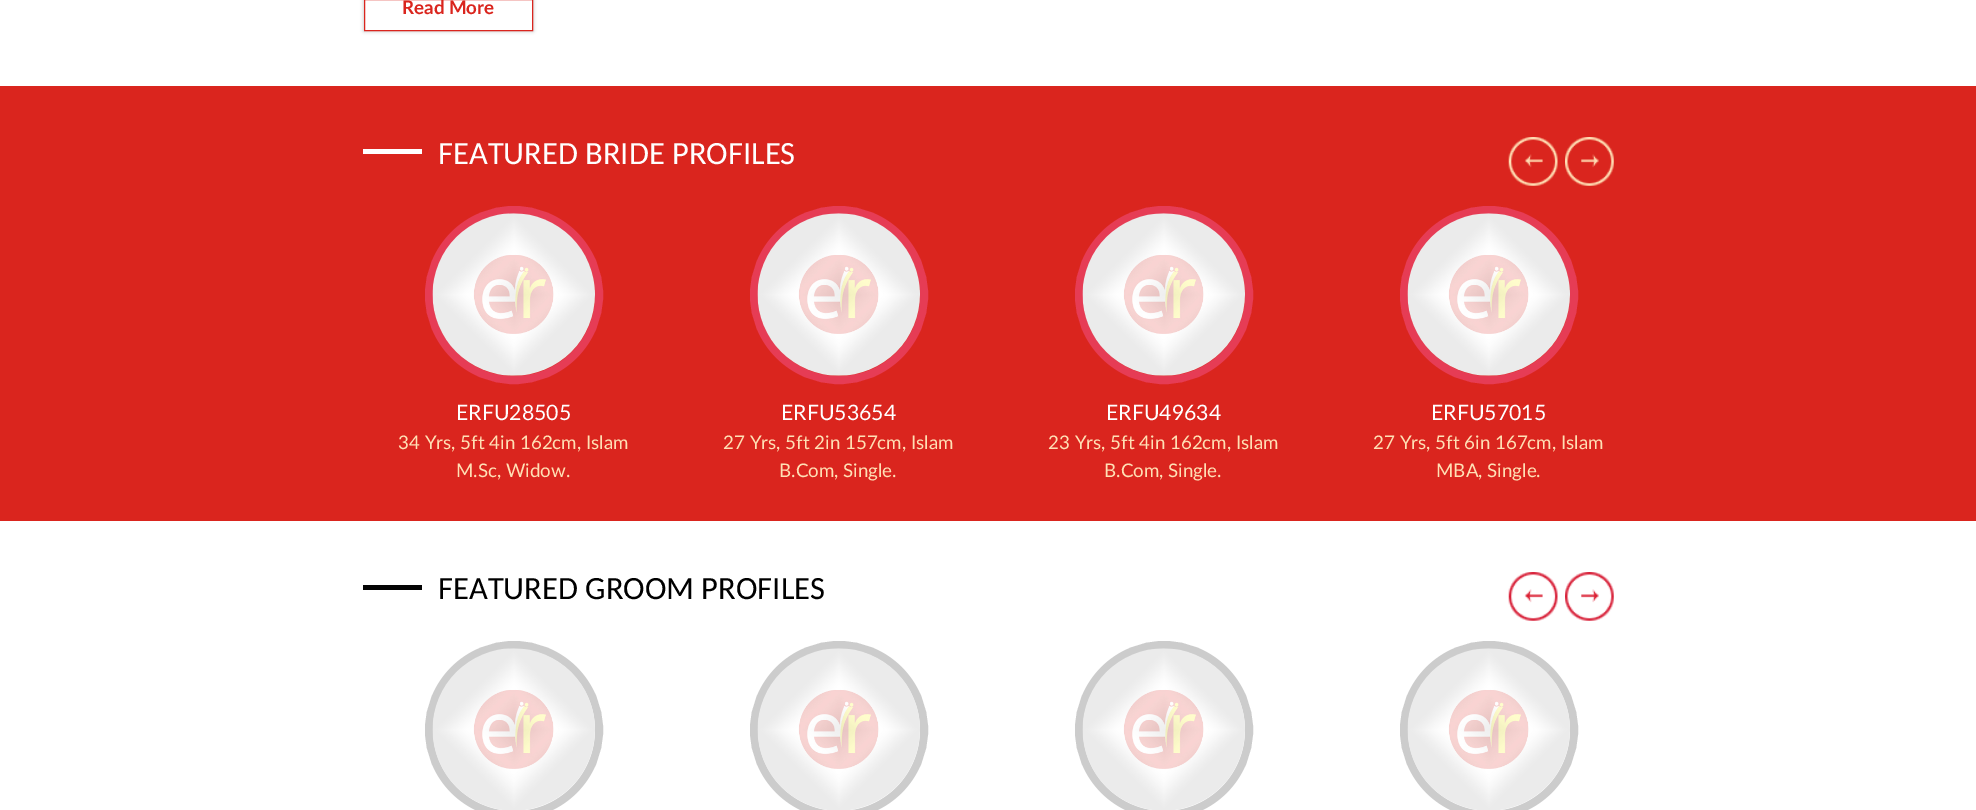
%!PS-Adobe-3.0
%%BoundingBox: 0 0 1976 810
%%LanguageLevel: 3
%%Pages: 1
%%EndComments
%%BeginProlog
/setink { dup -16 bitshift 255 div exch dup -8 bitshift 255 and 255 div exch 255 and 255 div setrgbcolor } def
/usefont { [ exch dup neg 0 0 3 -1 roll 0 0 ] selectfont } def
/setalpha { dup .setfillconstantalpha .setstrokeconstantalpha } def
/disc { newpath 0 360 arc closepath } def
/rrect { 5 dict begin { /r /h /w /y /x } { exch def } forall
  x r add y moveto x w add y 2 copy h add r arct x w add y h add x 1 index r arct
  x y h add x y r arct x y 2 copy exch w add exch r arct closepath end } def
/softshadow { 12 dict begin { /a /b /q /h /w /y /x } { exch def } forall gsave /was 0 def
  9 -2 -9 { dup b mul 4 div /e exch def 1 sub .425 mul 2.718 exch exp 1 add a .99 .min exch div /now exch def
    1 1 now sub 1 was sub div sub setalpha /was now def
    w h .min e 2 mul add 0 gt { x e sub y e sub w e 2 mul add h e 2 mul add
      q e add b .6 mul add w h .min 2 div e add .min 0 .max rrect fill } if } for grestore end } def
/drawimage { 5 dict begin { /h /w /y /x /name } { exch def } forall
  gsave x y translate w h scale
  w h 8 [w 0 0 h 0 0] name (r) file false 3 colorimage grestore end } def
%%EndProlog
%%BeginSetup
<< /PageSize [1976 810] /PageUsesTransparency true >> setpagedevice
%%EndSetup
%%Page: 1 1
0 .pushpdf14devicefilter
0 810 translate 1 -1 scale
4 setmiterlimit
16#FFFFFF setink
0 0 1976 810 rectfill
gsave
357 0 moveto 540 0 lineto 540 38 lineto 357 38 lineto closepath 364 -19 moveto 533 -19 lineto 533 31 lineto 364 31 lineto closepath eoclip newpath
16#000000 setink
364 -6 169 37 0 2 0.3 softshadow
grestore
16#DA251E setink
364.5 -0.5 168 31 rectstroke
/Lato-Bold 18.75 usefont
402 14 moveto (Read More) show
0 86 1976 435 rectfill
16#FFFFFF setink
363 149 59 5 rectfill
/Carlito-Regular 32.5 usefont
438 164 moveto (FEATURED BRIDE PROFILES) show
(img1.raw) 1508 137 50 49 drawimage
(img2.raw) 1565 137 49 49 drawimage
16#E63C55 setink
8 setlinewidth
514 295 85 disc stroke
(img3.raw) 432 213 163 163 drawimage
/Lato-Regular 21.25 usefont
16#FFFFFF setink
456 420 moveto (ERFU28505) show
/Lato-Regular 18.75 usefont
16#FFE0B5 setink
398 449 moveto (34 Yrs, 5ft 4in 162cm, Islam) show
456 477 moveto (M.Sc, Widow.) show
16#E63C55 setink
839 295 85 disc stroke
(img4.raw) 757 213 163 163 drawimage
/Lato-Regular 21.25 usefont
16#FFFFFF setink
781 420 moveto (ERFU53654) show
/Lato-Regular 18.75 usefont
16#FFE0B5 setink
723 449 moveto (27 Yrs, 5ft 2in 157cm, Islam) show
779 477 moveto (B.Com, Single.) show
16#E63C55 setink
1164 295 85 disc stroke
(img5.raw) 1082 213 163 163 drawimage
/Lato-Regular 21.25 usefont
16#FFFFFF setink
1106 420 moveto (ERFU49634) show
/Lato-Regular 18.75 usefont
16#FFE0B5 setink
1048 449 moveto (23 Yrs, 5ft 4in 162cm, Islam) show
1104 477 moveto (B.Com, Single.) show
16#E63C55 setink
1489 295 85 disc stroke
(img6.raw) 1407 213 163 163 drawimage
/Lato-Regular 21.25 usefont
16#FFFFFF setink
1431 420 moveto (ERFU57015) show
/Lato-Regular 18.75 usefont
16#FFE0B5 setink
1373 449 moveto (27 Yrs, 5ft 6in 167cm, Islam) show
1436 477 moveto (MBA, Single.) show
(img7.raw) 1508 572 50 49 drawimage
(img8.raw) 1565 572 49 49 drawimage
16#CCCCCC setink
514 730 85 disc stroke
(img9.raw) 432 648 163 162 drawimage
839 730 85 disc stroke
(img10.raw) 757 648 163 162 drawimage
1164 730 85 disc stroke
(img11.raw) 1082 648 163 162 drawimage
1489 730 85 disc stroke
(img12.raw) 1407 648 163 162 drawimage
16#040404 setink
363 585 59 5 rectfill
/Carlito-Regular 32.5 usefont
16#000000 setink
438 599 moveto (FEATURED GROOM PROFILES) show
.poppdf14devicefilter showpage
%%EOF
